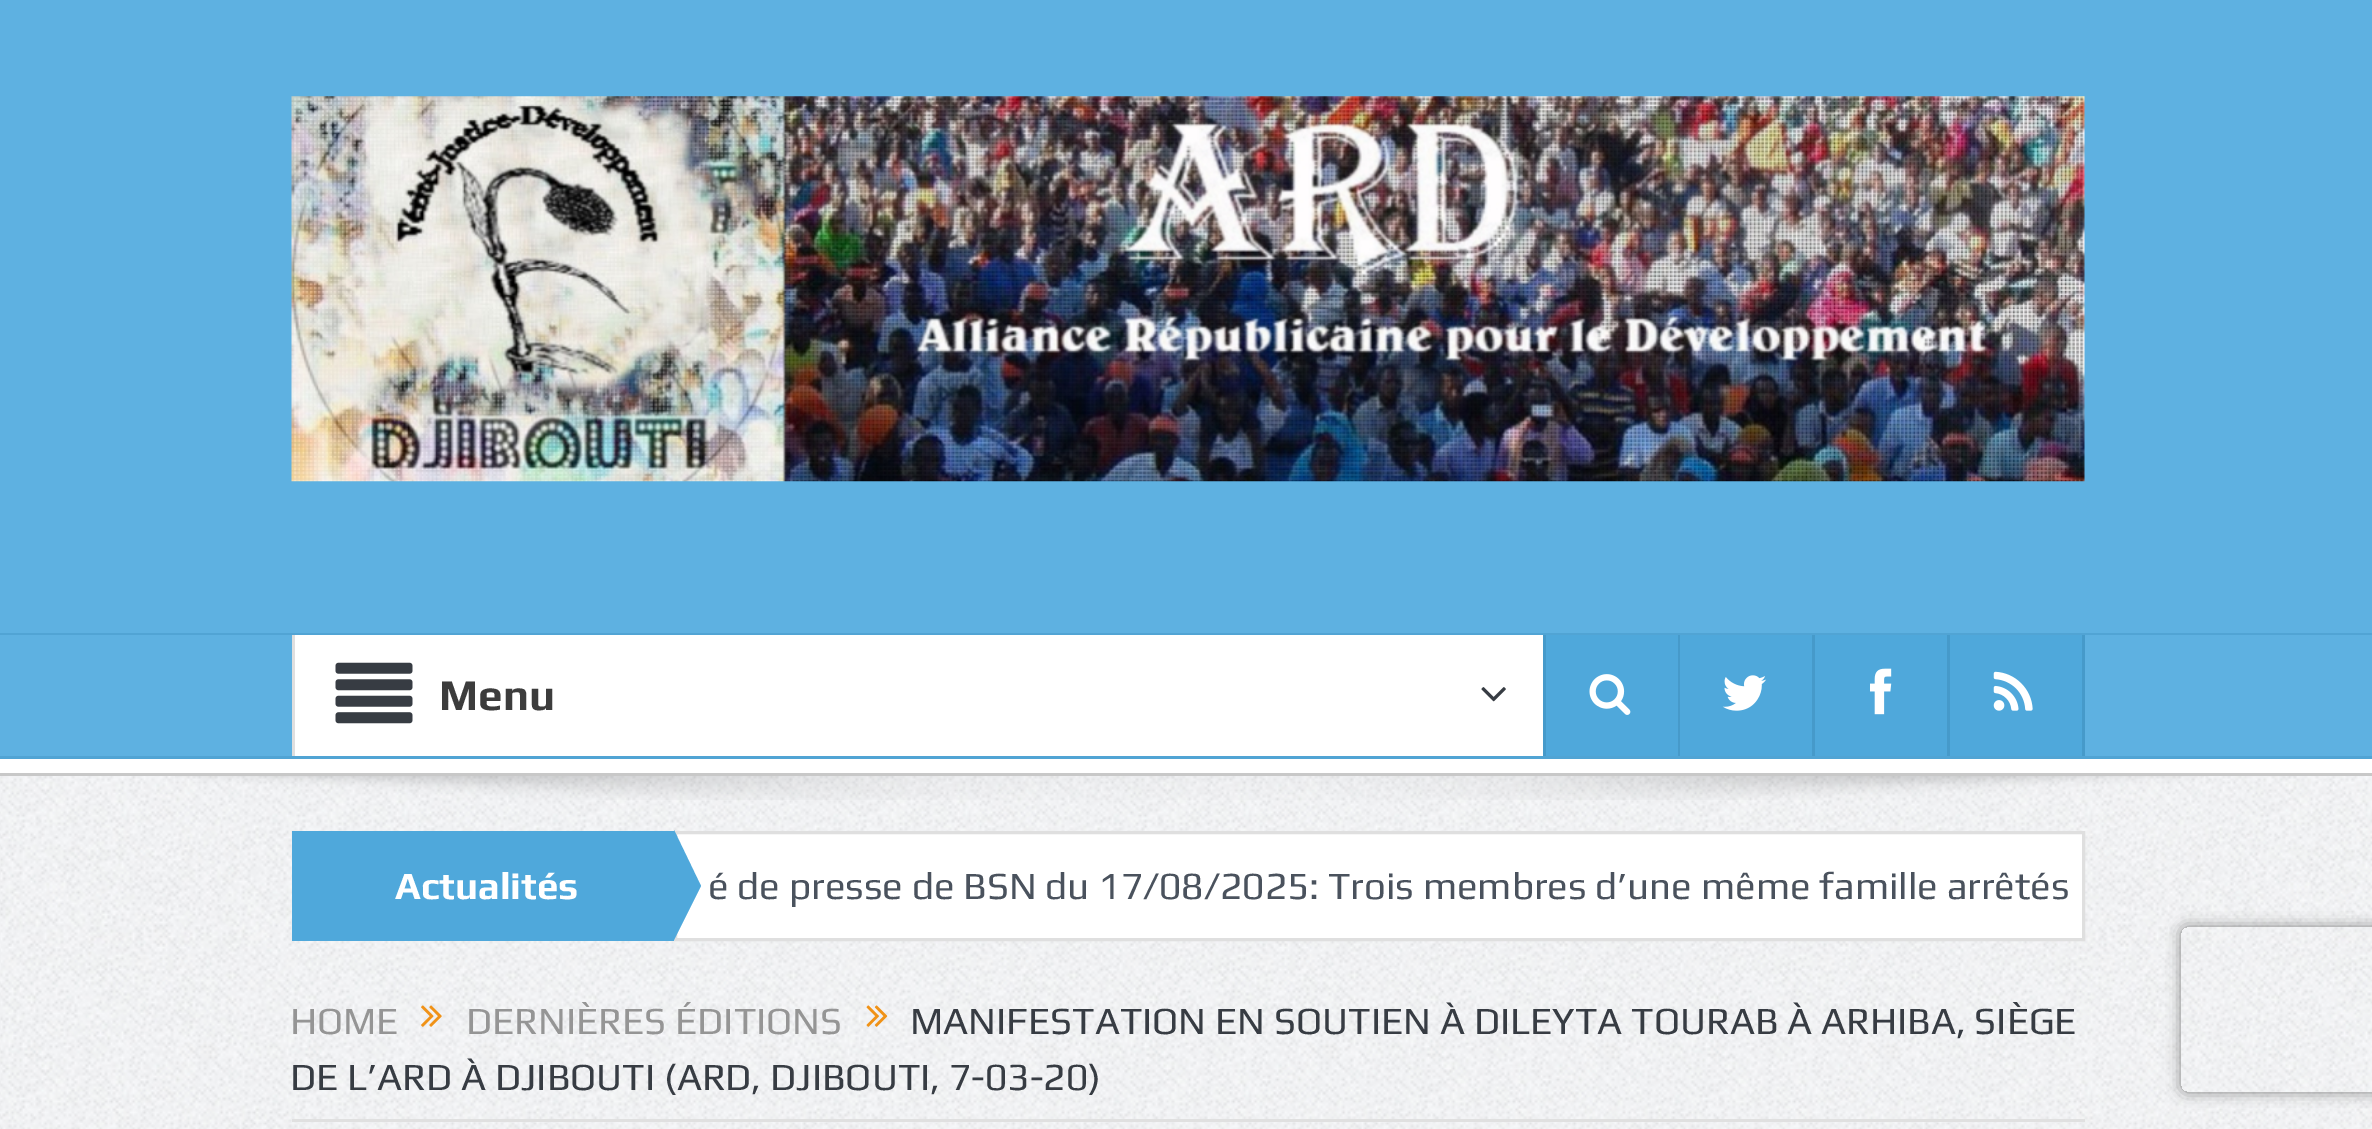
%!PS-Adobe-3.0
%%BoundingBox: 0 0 2372 1129
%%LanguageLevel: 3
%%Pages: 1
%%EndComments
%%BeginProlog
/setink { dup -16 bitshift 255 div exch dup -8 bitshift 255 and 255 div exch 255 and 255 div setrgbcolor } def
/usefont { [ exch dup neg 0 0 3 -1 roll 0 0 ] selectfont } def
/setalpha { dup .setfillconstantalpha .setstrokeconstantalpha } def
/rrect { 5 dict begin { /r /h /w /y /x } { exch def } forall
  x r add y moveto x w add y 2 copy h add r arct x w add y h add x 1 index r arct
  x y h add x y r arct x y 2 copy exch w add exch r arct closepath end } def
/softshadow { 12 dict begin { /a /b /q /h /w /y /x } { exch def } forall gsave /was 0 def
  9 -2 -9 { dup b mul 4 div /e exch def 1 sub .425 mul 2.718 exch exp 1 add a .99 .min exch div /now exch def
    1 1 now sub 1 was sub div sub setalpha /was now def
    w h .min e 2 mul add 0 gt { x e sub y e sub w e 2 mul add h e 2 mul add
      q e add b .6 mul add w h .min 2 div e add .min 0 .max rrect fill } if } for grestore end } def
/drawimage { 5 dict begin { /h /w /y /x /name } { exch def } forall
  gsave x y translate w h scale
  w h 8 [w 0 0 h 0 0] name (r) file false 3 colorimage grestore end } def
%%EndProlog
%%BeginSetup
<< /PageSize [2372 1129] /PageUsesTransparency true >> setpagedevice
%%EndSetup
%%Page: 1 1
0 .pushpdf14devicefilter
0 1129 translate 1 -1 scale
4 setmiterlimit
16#FFFFFF setink
0 0 2372 1129 rectfill
(img1.raw) 0 776 2372 353 drawimage
16#5EB1E1 setink
0 0 2372 633 rectfill
(img2.raw) 291 96 1794 386 drawimage
[
    [0 633 2372 2 16#51A4D4]
    [0 773 2372 3 16#C8C8C8]
    [0 635 2372 121 16#5EB1E1]
    [0 756 2372 3 16#51A4D4]
    [295 635 1248 121 16#FFFFFF]
    [292 635 3 121 16#DFDFDF]
] { aload pop setink rectfill } forall
(img3.raw) 335 662 78 62 drawimage
/Play-Bold 44 usefont
16#3C3C3C setink
439 710 moveto (Menu) show
(img4.raw) 1481 687 25 15 drawimage
[
    [1546 635 132 121 16#4FA8DB]
    [1678 635 2 121 16#469ACA]
    [1543 635 3 121 16#469ACA]
] { aload pop setink rectfill } forall
(img5.raw) 1589 674 42 41 drawimage
16#4FA8DB setink
1680 635 132 121 rectfill
16#469ACA setink
1812 635 3 121 rectfill
(img6.raw) 1722 675 45 36 drawimage
16#4FA8DB setink
1815 635 132 121 rectfill
16#469ACA setink
1947 635 3 121 rectfill
(img7.raw) 1870 668 22 47 drawimage
16#4FA8DB setink
1950 635 132 121 rectfill
16#469ACA setink
2082 635 3 121 rectfill
(img8.raw) 1993 671 40 40 drawimage
(img9.raw) 175 776 2029 24 drawimage
16#4FA8DB setink
292 831 382 110 rectfill
/Play-Bold 38.5 usefont
16#FFFFFF setink
395 899 moveto (Actualités) show
675.5 832.5 moveto 2083.5 832.5 lineto 2083.5 939.5 lineto 675.5 939.5 lineto closepath gsave fill grestore
16#DFDFDF setink
3 setlinewidth
stroke
16#4FA8DB setink
674 940 moveto 674 830 lineto 701 886 lineto closepath fill
/Play-Regular 38.5 usefont
16#4A525D setink
708 899 moveto (é de presse de BSN du 17/08/2025: Trois membres d’une même famille arrêtés) show
16#E0E0E0 setink
292 1119 1793 3 rectfill
16#959595 setink
290 1034 moveto (HOME) show
(img10.raw) 421 1005 21 22 drawimage
466 1034 moveto (DERNIÈRES ÉDITIONS) show
(img11.raw) 866 1005 22 22 drawimage
16#373C43 setink
910 1034 moveto (MANIFESTATION EN SOUTIEN À DILEYTA TOURAB À ARHIBA, SIÈGE) show
290 1090 moveto (DE L’ARD À DJIBOUTI \(ARD, DJIBOUTI, 7-03-20\)) show
gsave
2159 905 moveto 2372 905 lineto 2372 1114 lineto 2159 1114 lineto closepath 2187 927 moveto 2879 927 lineto 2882.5 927 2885 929.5 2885 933 curveto 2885 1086 lineto 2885 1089.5 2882.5 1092 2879 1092 curveto 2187 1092 lineto 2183.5 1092 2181 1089.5 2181 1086 curveto 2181 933 lineto 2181 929.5 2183.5 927 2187 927 curveto closepath eoclip newpath
16#808080 setink
2181 927 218 165 6 7 1 softshadow
grestore
.poppdf14devicefilter showpage
%%EOF
